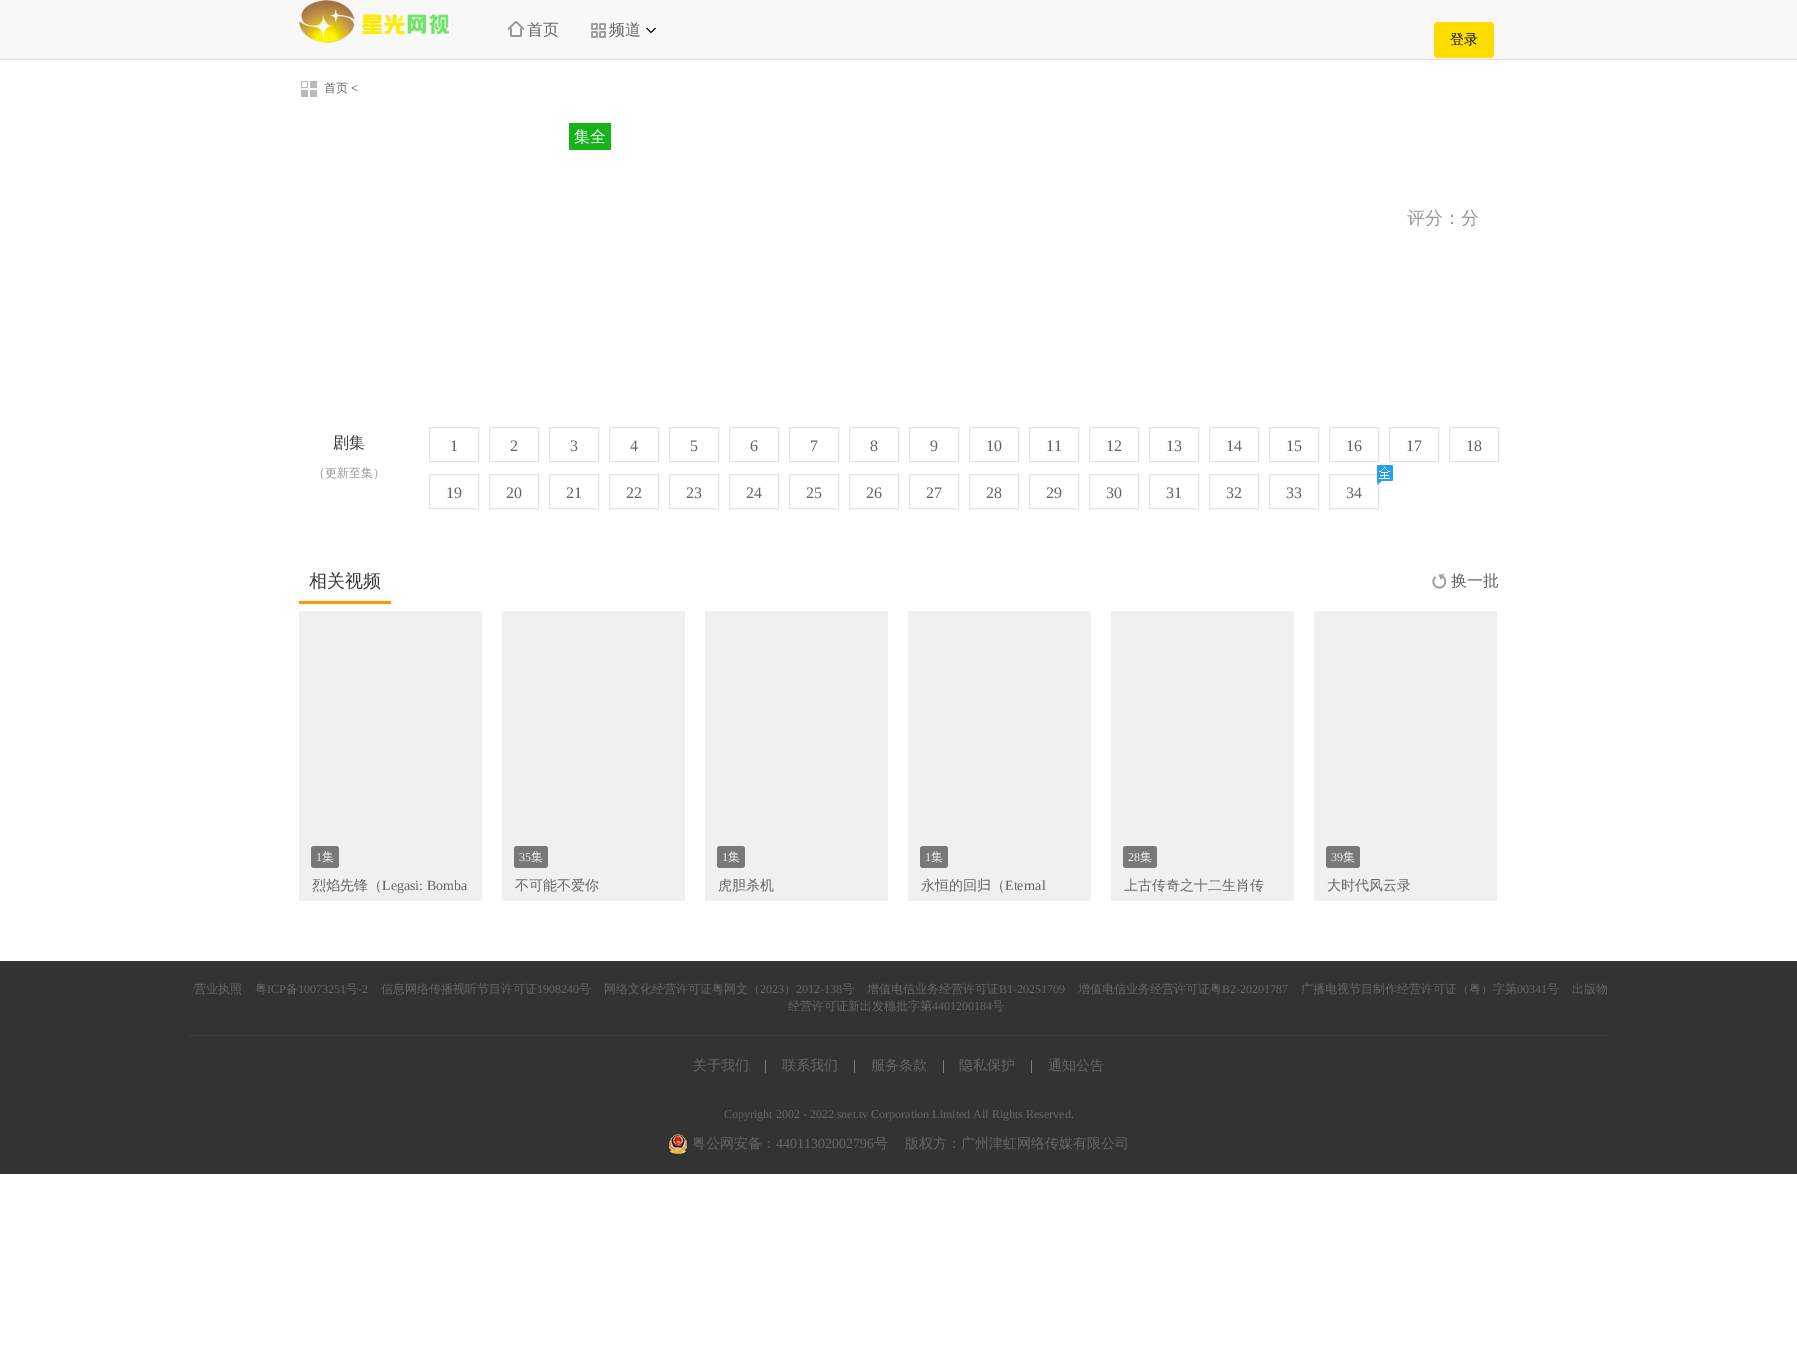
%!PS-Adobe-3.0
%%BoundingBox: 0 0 1797 1369
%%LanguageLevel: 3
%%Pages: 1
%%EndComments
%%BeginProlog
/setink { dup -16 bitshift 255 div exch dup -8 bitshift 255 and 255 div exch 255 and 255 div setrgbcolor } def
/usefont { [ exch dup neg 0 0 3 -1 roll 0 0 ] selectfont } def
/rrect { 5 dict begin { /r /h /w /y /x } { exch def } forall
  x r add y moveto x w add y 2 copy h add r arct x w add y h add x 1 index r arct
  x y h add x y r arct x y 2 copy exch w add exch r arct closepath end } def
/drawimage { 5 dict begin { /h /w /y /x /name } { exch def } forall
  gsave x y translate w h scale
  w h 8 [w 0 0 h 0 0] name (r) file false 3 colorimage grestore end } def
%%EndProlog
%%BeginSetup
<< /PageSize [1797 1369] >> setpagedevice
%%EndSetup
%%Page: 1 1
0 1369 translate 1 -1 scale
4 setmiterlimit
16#FFFFFF setink
0 0 1797 1369 rectfill
16#F8F8F8 setink
0 0 1797 59 rectfill
16#DDDDDD setink
0 59 1797 1 rectfill
(img1.raw) 299 0 150 43 drawimage
(img2.raw) 508 21 16 16 drawimage
/WenQuanYiZenHei-Medium 16 usefont
16#666666 setink
527 35 moveto (首页) show
(img3.raw) 591 23 15 15 drawimage
609 35 moveto (频道) show
(img4.raw) 646 28 10 5 drawimage
16#FFDD00 setink
1434 22 60 36 4 rrect fill
/WenQuanYiZenHei-Medium 14 usefont
16#111111 setink
1450 44 moveto (登录) show
(img5.raw) 301 81 16 16 drawimage
/WenQuanYiZenHei-Medium 12 usefont
16#666666 setink
324 92 moveto (首页) show
/LiberationSerif-Regular 12 usefont
16#393939 setink
351 92 moveto (<) show
16#17B31C setink
569 123 42 27 rectfill
/WenQuanYiZenHei-Medium 16 usefont
16#FFFFFF setink
574 142 moveto (集全) show
/WenQuanYiZenHei-Medium 18 usefont
16#999999 setink
1407 224 moveto (评分：分) show
/WenQuanYiZenHei-Medium 16 usefont
16#393939 setink
333 448 moveto (剧集) show
/WenQuanYiZenHei-Medium 12 usefont
16#999999 setink
313 477 moveto (（更新至集）) show
16#E4E4E4 setink
429.5 427.5 49 34 rectstroke
/LiberationSerif-Regular 16 usefont
16#666666 setink
450 451 moveto (1) show
16#E4E4E4 setink
489.5 427.5 49 34 rectstroke
16#666666 setink
510 451 moveto (2) show
16#E4E4E4 setink
549.5 427.5 49 34 rectstroke
16#666666 setink
570 451 moveto (3) show
16#E4E4E4 setink
609.5 427.5 49 34 rectstroke
16#666666 setink
630 451 moveto (4) show
16#E4E4E4 setink
669.5 427.5 49 34 rectstroke
16#666666 setink
690 451 moveto (5) show
16#E4E4E4 setink
729.5 427.5 49 34 rectstroke
16#666666 setink
750 451 moveto (6) show
16#E4E4E4 setink
789.5 427.5 49 34 rectstroke
16#666666 setink
810 451 moveto (7) show
16#E4E4E4 setink
849.5 427.5 49 34 rectstroke
16#666666 setink
870 451 moveto (8) show
16#E4E4E4 setink
909.5 427.5 49 34 rectstroke
16#666666 setink
930 451 moveto (9) show
16#E4E4E4 setink
969.5 427.5 49 34 rectstroke
16#666666 setink
986 451 moveto (10) show
16#E4E4E4 setink
1029.5 427.5 49 34 rectstroke
16#666666 setink
1046 451 moveto (11) show
16#E4E4E4 setink
1089.5 427.5 49 34 rectstroke
16#666666 setink
1106 451 moveto (12) show
16#E4E4E4 setink
1149.5 427.5 49 34 rectstroke
16#666666 setink
1166 451 moveto (13) show
16#E4E4E4 setink
1209.5 427.5 49 34 rectstroke
16#666666 setink
1226 451 moveto (14) show
16#E4E4E4 setink
1269.5 427.5 49 34 rectstroke
16#666666 setink
1286 451 moveto (15) show
16#E4E4E4 setink
1329.5 427.5 49 34 rectstroke
16#666666 setink
1346 451 moveto (16) show
16#E4E4E4 setink
1389.5 427.5 49 34 rectstroke
16#666666 setink
1406 451 moveto (17) show
16#E4E4E4 setink
1449.5 427.5 49 34 rectstroke
16#666666 setink
1466 451 moveto (18) show
16#E4E4E4 setink
429.5 474.5 49 34 rectstroke
16#666666 setink
446 498 moveto (19) show
16#E4E4E4 setink
489.5 474.5 49 34 rectstroke
16#666666 setink
506 498 moveto (20) show
16#E4E4E4 setink
549.5 474.5 49 34 rectstroke
16#666666 setink
566 498 moveto (21) show
16#E4E4E4 setink
609.5 474.5 49 34 rectstroke
16#666666 setink
626 498 moveto (22) show
16#E4E4E4 setink
669.5 474.5 49 34 rectstroke
16#666666 setink
686 498 moveto (23) show
16#E4E4E4 setink
729.5 474.5 49 34 rectstroke
16#666666 setink
746 498 moveto (24) show
16#E4E4E4 setink
789.5 474.5 49 34 rectstroke
16#666666 setink
806 498 moveto (25) show
16#E4E4E4 setink
849.5 474.5 49 34 rectstroke
16#666666 setink
866 498 moveto (26) show
16#E4E4E4 setink
909.5 474.5 49 34 rectstroke
16#666666 setink
926 498 moveto (27) show
16#E4E4E4 setink
969.5 474.5 49 34 rectstroke
16#666666 setink
986 498 moveto (28) show
16#E4E4E4 setink
1029.5 474.5 49 34 rectstroke
16#666666 setink
1046 498 moveto (29) show
16#E4E4E4 setink
1089.5 474.5 49 34 rectstroke
16#666666 setink
1106 498 moveto (30) show
16#E4E4E4 setink
1149.5 474.5 49 34 rectstroke
16#666666 setink
1166 498 moveto (31) show
16#E4E4E4 setink
1209.5 474.5 49 34 rectstroke
16#666666 setink
1226 498 moveto (32) show
16#E4E4E4 setink
1269.5 474.5 49 34 rectstroke
16#666666 setink
1286 498 moveto (33) show
16#E4E4E4 setink
1329.5 474.5 49 34 rectstroke
(img6.raw) 1377 465 16 20 drawimage
16#666666 setink
1346 498 moveto (34) show
16#FF9900 setink
299 601 92 3 rectfill
/WenQuanYiZenHei-Medium 18 usefont
16#393939 setink
309 587 moveto (相关视频) show
(img7.raw) 1432 574 15 15 drawimage
/WenQuanYiZenHei-Medium 16 usefont
16#666666 setink
1451 586 moveto (换一批) show
16#F0F0F0 setink
299 611 183 290 rectfill
16#787878 setink
311 846 28 22 3 rrect fill
/LiberationSerif-Regular 12 usefont
16#EEEEEE setink
316 861 moveto (1) show
/WenQuanYiZenHei-Medium 12 usefont
322 861 moveto (集) show
/WenQuanYiZenHei-Medium 14 usefont
16#666666 setink
312 890 moveto (烈焰先锋（) show
/LiberationSerif-Regular 14 usefont
382 890 moveto (Legasi: Bomba) show
16#F0F0F0 setink
502 611 183 290 rectfill
16#787878 setink
514 846 34 22 3 rrect fill
/LiberationSerif-Regular 12 usefont
16#EEEEEE setink
519 861 moveto (35) show
/WenQuanYiZenHei-Medium 12 usefont
531 861 moveto (集) show
/WenQuanYiZenHei-Medium 14 usefont
16#666666 setink
515 890 moveto (不可能不爱你) show
16#F0F0F0 setink
705 611 183 290 rectfill
16#787878 setink
717 846 28 22 3 rrect fill
/LiberationSerif-Regular 12 usefont
16#EEEEEE setink
722 861 moveto (1) show
/WenQuanYiZenHei-Medium 12 usefont
728 861 moveto (集) show
/WenQuanYiZenHei-Medium 14 usefont
16#666666 setink
718 890 moveto (虎胆杀机) show
16#F0F0F0 setink
908 611 183 290 rectfill
16#787878 setink
920 846 28 22 3 rrect fill
/LiberationSerif-Regular 12 usefont
16#EEEEEE setink
925 861 moveto (1) show
/WenQuanYiZenHei-Medium 12 usefont
931 861 moveto (集) show
/WenQuanYiZenHei-Medium 14 usefont
16#666666 setink
921 890 moveto (永恒的回归（) show
/LiberationSerif-Regular 14 usefont
1005 890 moveto (Eternal) show
16#F0F0F0 setink
1111 611 183 290 rectfill
16#787878 setink
1123 846 34 22 3 rrect fill
/LiberationSerif-Regular 12 usefont
16#EEEEEE setink
1128 861 moveto (28) show
/WenQuanYiZenHei-Medium 12 usefont
1140 861 moveto (集) show
/WenQuanYiZenHei-Medium 14 usefont
16#666666 setink
1124 890 moveto (上古传奇之十二生肖传) show
16#F0F0F0 setink
1314 611 183 290 rectfill
16#787878 setink
1326 846 34 22 3 rrect fill
/LiberationSerif-Regular 12 usefont
16#EEEEEE setink
1331 861 moveto (39) show
/WenQuanYiZenHei-Medium 12 usefont
1343 861 moveto (集) show
/WenQuanYiZenHei-Medium 14 usefont
16#666666 setink
1327 890 moveto (大时代风云录) show
16#333333 setink
0 961 1797 213 rectfill
/WenQuanYiZenHei-Medium 12 usefont
16#666666 setink
194 993 moveto (营业执照) show
255 993 moveto (粤) show
/LiberationSerif-Regular 12 usefont
267 993 moveto (ICP) show
/WenQuanYiZenHei-Medium 12 usefont
286 993 moveto (备) show
/LiberationSerif-Regular 12 usefont
298 993 moveto (10073251) show
/WenQuanYiZenHei-Medium 12 usefont
346 993 moveto (号) show
/LiberationSerif-Regular 12 usefont
358 993 moveto (-2) show
/WenQuanYiZenHei-Medium 12 usefont
381 993 moveto (信息网络传播视听节目许可证) show
/LiberationSerif-Regular 12 usefont
537 993 moveto (1908240) show
/WenQuanYiZenHei-Medium 12 usefont
579 993 moveto (号) show
604 993 moveto (网络文化经营许可证粤网文（) show
/LiberationSerif-Regular 12 usefont
760 993 moveto (2023) show
/WenQuanYiZenHei-Medium 12 usefont
784 993 moveto (）) show
/LiberationSerif-Regular 12 usefont
796 993 moveto (2012-138) show
/WenQuanYiZenHei-Medium 12 usefont
842 993 moveto (号) show
867 993 moveto (增值电信业务经营许可证) show
/LiberationSerif-Regular 12 usefont
999 993 moveto (B1-20251709) show
/WenQuanYiZenHei-Medium 12 usefont
1078 993 moveto (增值电信业务经营许可证粤) show
/LiberationSerif-Regular 12 usefont
1222 993 moveto (B2-20201787) show
/WenQuanYiZenHei-Medium 12 usefont
1301 993 moveto (广播电视节目制作经营许可证（粤）字第) show
/LiberationSerif-Regular 12 usefont
1517 993 moveto (00341) show
/WenQuanYiZenHei-Medium 12 usefont
[
    [(号) 1547 993]
    [(出版物) 1572 993]
    [(经营许可证新出发穗批字第) 788 1010]
] { aload pop moveto show } forall
/LiberationSerif-Regular 12 usefont
932 1010 moveto (4401200184) show
/WenQuanYiZenHei-Medium 12 usefont
992 1010 moveto (号) show
16#3D3D3D setink
189 1035 1420 1 rectfill
/WenQuanYiZenHei-Medium 14 usefont
16#666666 setink
693 1070 moveto (关于我们) show
/LiberationSerif-Regular 14 usefont
16#999999 setink
764 1070 moveto (|) show
/WenQuanYiZenHei-Medium 14 usefont
16#666666 setink
782 1070 moveto (联系我们) show
/LiberationSerif-Regular 14 usefont
16#999999 setink
853 1070 moveto (|) show
/WenQuanYiZenHei-Medium 14 usefont
16#666666 setink
871 1070 moveto (服务条款) show
/LiberationSerif-Regular 14 usefont
16#999999 setink
942 1070 moveto (|) show
/WenQuanYiZenHei-Medium 14 usefont
16#666666 setink
959 1070 moveto (隐私保护) show
/LiberationSerif-Regular 14 usefont
16#999999 setink
1030 1070 moveto (|) show
/WenQuanYiZenHei-Medium 14 usefont
16#666666 setink
1048 1070 moveto (通知公告) show
/LiberationSerif-Regular 12 usefont
724 1118 moveto (Copyright 2002 - 2022 snet.tv Corporation Limited All Rights Reserved.) show
(img8.raw) 669 1134 18 20 drawimage
/WenQuanYiZenHei-Medium 14 usefont
692 1148 moveto (粤公网安备：) show
/LiberationSerif-Regular 14 usefont
776 1148 moveto (44011302002796) show
/WenQuanYiZenHei-Medium 14 usefont
874 1148 moveto (号) show
905 1148 moveto (版权方：广州津虹网络传媒有限公司) show
showpage
%%EOF
